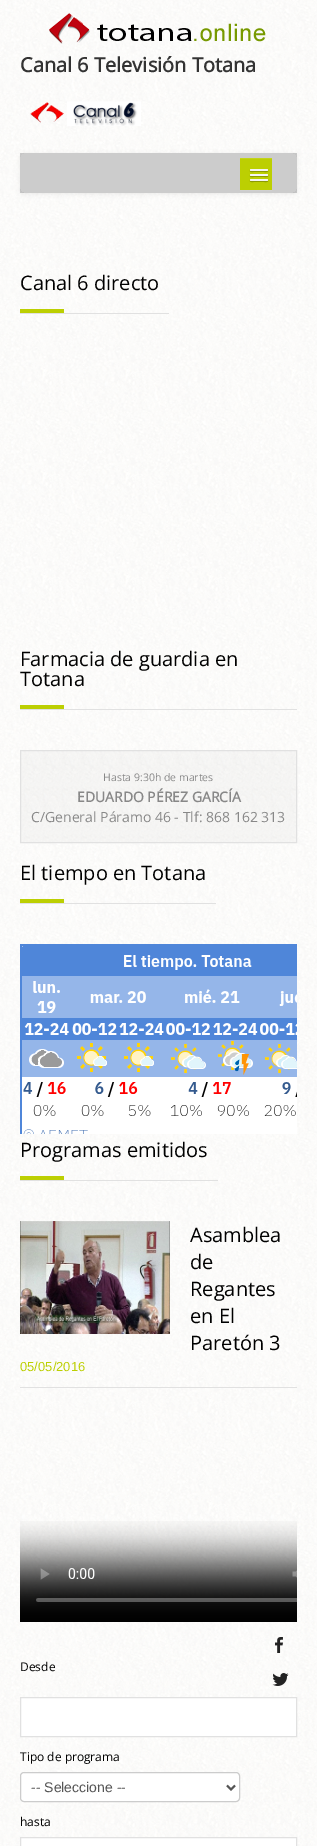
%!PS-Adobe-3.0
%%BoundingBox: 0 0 317 1846
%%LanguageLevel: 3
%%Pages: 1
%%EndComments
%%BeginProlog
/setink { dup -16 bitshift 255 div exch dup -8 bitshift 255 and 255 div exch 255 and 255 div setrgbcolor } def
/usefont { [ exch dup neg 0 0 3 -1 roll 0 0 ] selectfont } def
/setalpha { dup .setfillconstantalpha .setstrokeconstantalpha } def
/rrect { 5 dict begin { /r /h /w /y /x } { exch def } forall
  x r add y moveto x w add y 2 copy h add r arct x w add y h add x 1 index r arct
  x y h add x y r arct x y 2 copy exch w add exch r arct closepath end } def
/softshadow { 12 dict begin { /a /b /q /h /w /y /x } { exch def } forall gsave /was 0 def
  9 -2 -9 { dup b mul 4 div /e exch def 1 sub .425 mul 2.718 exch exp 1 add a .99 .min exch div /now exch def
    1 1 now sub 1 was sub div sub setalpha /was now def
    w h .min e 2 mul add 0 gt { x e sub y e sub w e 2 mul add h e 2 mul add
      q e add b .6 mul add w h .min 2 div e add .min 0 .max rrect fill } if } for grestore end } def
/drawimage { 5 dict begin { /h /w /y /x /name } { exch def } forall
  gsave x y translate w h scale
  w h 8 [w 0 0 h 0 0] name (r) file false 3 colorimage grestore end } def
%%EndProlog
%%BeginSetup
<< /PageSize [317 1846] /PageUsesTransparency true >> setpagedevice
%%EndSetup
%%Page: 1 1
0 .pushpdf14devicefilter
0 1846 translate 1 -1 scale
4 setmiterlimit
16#FFFFFF setink
0 0 317 1846 rectfill
(img1.raw) 0 0 317 1846 drawimage
(img2.raw) 49 13 217 31 drawimage
/OpenSans-Bold 20 usefont
16#333333 setink
20 72 moveto (Canal 6 Televisión Totana) show
(img3.raw) 30 101 111 25 drawimage
16#CCCCCC setink
20 153 277 40 rectfill
gsave
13 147 moveto 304 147 lineto 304 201 lineto 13 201 lineto closepath 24 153 moveto 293 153 lineto 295 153 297 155 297 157 curveto 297 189 lineto 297 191 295 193 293 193 curveto 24 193 lineto 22 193 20 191 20 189 curveto 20 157 lineto 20 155 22 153 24 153 curveto closepath eoclip newpath
16#000000 setink
20 154 277 40 4 2 0.07 softshadow
grestore
[
    [240 190 32 1 16#D0D0D0]
    [240 159 32 31 16#BCCF02]
    [240 158 32 1 16#C3D41B]
] { aload pop setink rectfill } forall
16#8D9B02 setink
250 170.5 moveto 249 172.5 253.5 172 253.5 172 curveto 264.5 172 lineto 264.5 172 269 172.5 268 170.5 curveto 267 171.5 260.5 171 259 171 curveto 257.5 171 251 171.5 250 170.5 curveto closepath fill
16#F5F5F5 setink
250 169 18 2 1 rrect fill
16#8D9B02 setink
250 175.5 moveto 249 177.5 253.5 177 253.5 177 curveto 264.5 177 lineto 264.5 177 269 177.5 268 175.5 curveto 267 176.5 260.5 176 259 176 curveto 257.5 176 251 176.5 250 175.5 curveto closepath fill
16#F5F5F5 setink
250 174 18 2 1 rrect fill
16#8D9B02 setink
250 180.5 moveto 249 182.5 253.5 182 253.5 182 curveto 264.5 182 lineto 264.5 182 269 182.5 268 180.5 curveto 267 181.5 260.5 181 259 181 curveto 257.5 181 251 181.5 250 180.5 curveto closepath fill
16#F5F5F5 setink
250 179 18 2 1 rrect fill
16#BCCF02 setink
20 309 44 4 rectfill
16#E1E1E1 setink
20 313 149 1 rectfill
/OpenSans-Regular 20 usefont
16#000000 setink
20 290 moveto (Canal 6 directo) show
16#BCCF02 setink
20 705 44 4 rectfill
16#E1E1E1 setink
20 709 277 1 rectfill
16#000000 setink
20 666 moveto (Farmacia de guardia en) show
20 686 moveto (Totana) show
(img4.raw) 21 751 275 91 drawimage
16#E1E1E1 setink
20.5 750.5 276 92 rectstroke
/OpenSans-Regular 10.5 usefont
16#888888 setink
103 781 moveto (Hasta 9:30h de martes) show
/OpenSans-Bold 14 usefont
77 802 moveto (EDUARDO PÉREZ GARCÍA) show
/OpenSans-Regular 14 usefont
31 822 moveto (C/General Páramo 46 - Tlf: 868 162 313) show
16#BCCF02 setink
20 899 44 4 rectfill
16#E1E1E1 setink
20 903 196 1 rectfill
/OpenSans-Regular 20 usefont
16#000000 setink
20 880 moveto (El tiempo en Totana) show
(img5.raw) 20 944 277 190 drawimage
16#BCCF02 setink
20 1176 44 4 rectfill
16#E1E1E1 setink
20 1180 198 1 rectfill
16#000000 setink
20 1157 moveto (Programas emitidos) show
(img6.raw) 20 1221 150 113 drawimage
[
    [(Asamblea) 190 1242]
    [(de) 190 1269]
    [(Regantes) 190 1296]
    [(en El) 190 1323]
    [(Paretón 3) 190 1350]
] { aload pop moveto show } forall
/LiberationSans-Regular 13 usefont
16#BCCF02 setink
20 1371 moveto (05/05/2016) show
16#E1E1E1 setink
20 1387 277 1 rectfill
(img7.raw) 20 1521 277 101 drawimage
(img8.raw) 275 1637 8 16 drawimage
(img9.raw) 272 1673 17 13 drawimage
/OpenSans-Regular 12 usefont
16#000000 setink
20 1671 moveto (Desde) show
16#FFFFFF setink
20.5 1697.5 moveto 296.5 1697.5 lineto 296.5 1736.5 lineto 20.5 1736.5 lineto closepath gsave fill grestore
16#E1E1E1 setink
stroke
16#000000 setink
20 1761 moveto (Tipo de programa) show
16#FFFFFF setink
20.5 1772.5 219 29 3.5 rrect gsave fill grestore
16#CCCCCC setink
stroke
16#555555 setink
2 setlinewidth
227 1785.5 moveto 231 1789.5 lineto 235 1785.5 lineto stroke
/LiberationSans-Regular 14 usefont
31 1792 moveto (-- Seleccione --) show
/OpenSans-Regular 12 usefont
16#000000 setink
20 1826 moveto (hasta) show
16#FFFFFF setink
20.5 1837.5 moveto 296.5 1837.5 lineto 296.5 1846.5 lineto 20.5 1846.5 lineto closepath gsave fill grestore
16#E1E1E1 setink
1 setlinewidth
stroke
.poppdf14devicefilter showpage
%%EOF
